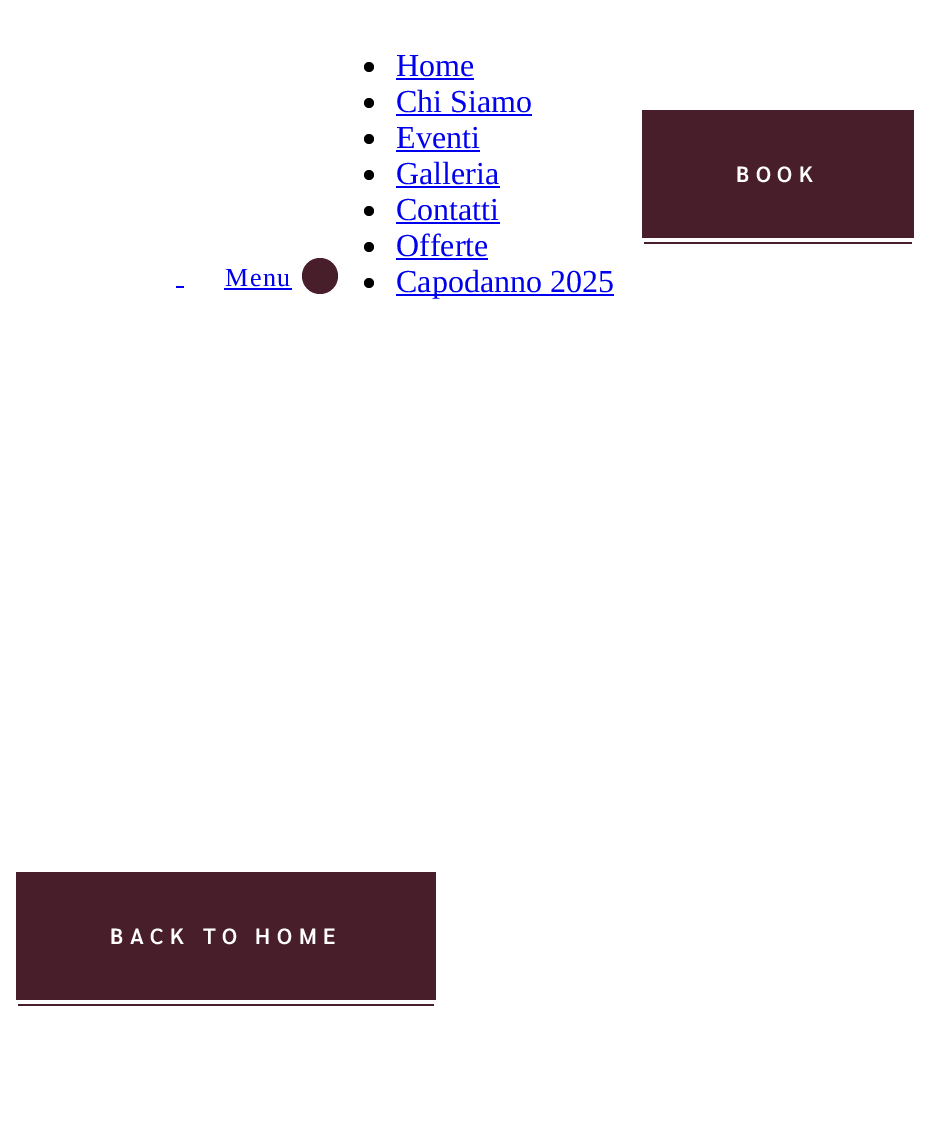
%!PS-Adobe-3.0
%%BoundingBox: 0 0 930 1122
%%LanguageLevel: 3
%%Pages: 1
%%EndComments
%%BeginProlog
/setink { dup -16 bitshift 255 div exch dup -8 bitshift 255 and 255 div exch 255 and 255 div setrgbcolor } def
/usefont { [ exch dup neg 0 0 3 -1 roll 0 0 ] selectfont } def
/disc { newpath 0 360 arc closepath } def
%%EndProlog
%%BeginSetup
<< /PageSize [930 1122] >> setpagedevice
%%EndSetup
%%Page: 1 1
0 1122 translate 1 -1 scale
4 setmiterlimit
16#FFFFFF setink
0 0 930 1122 rectfill
16#0000EE setink
176 286 8 2 rectfill
/LiberationSerif-Regular 26 usefont
225 286 moveto 1.5 0 (Menu) ashow
224 288 68 2 rectfill
16#491E2B setink
320 276 18 disc fill
16#000000 setink
369 67 5 disc fill
/LiberationSerif-Regular 32 usefont
16#0000EE setink
396 76 moveto (Home) show
396 78 78 2 rectfill
16#000000 setink
369 103 5 disc fill
16#0000EE setink
396 112 moveto (Chi Siamo) show
396 114 136 2 rectfill
16#000000 setink
369 139 5 disc fill
16#0000EE setink
396 148 moveto (Eventi) show
396 150 84 2 rectfill
16#000000 setink
369 175 5 disc fill
16#0000EE setink
396 184 moveto (Galleria) show
396 186 104 2 rectfill
16#000000 setink
369 211 5 disc fill
16#0000EE setink
396 220 moveto (Contatti) show
396 222 104 2 rectfill
16#000000 setink
369 247 5 disc fill
16#0000EE setink
396 256 moveto (Offerte) show
396 258 92 2 rectfill
16#000000 setink
369 283 5 disc fill
16#0000EE setink
396 294 218 2 rectfill
396 292 moveto (Capodanno 2025) show
16#491E2B setink
642 110 272 128 rectfill
/Sarabun-SemiBold 22 usefont
16#FFFFFF setink
736 182 moveto 6.6 0 (BOOK) ashow
16#491E2B setink
644 242 268 2 rectfill
16 872 420 128 rectfill
16#FFFFFF setink
110 944 moveto 6.6 0 (BACK TO HOME) ashow
16#491E2B setink
18 1004 416 2 rectfill
showpage
%%EOF
